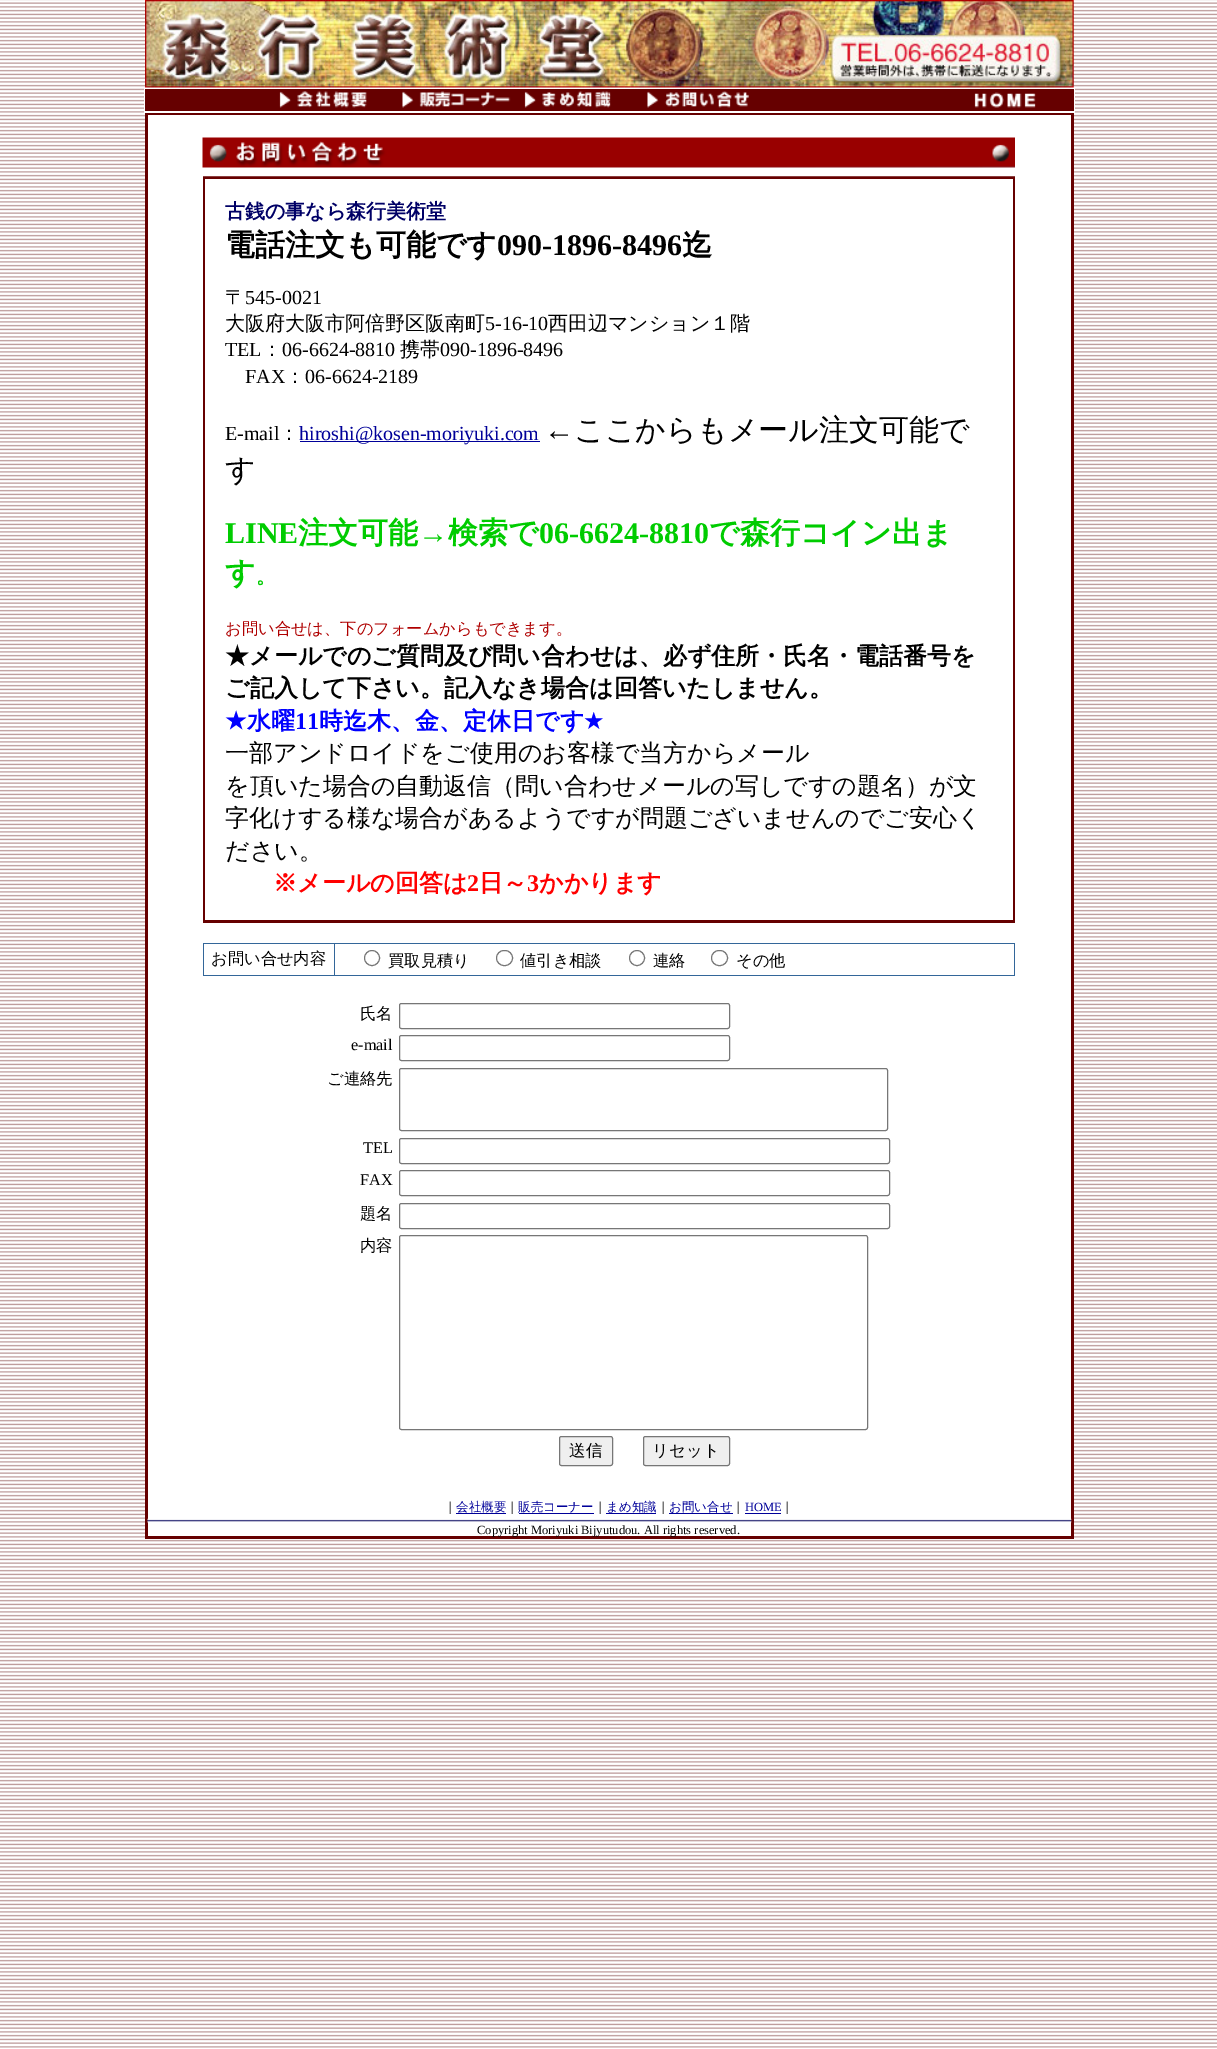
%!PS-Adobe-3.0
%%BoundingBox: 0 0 1217 2049
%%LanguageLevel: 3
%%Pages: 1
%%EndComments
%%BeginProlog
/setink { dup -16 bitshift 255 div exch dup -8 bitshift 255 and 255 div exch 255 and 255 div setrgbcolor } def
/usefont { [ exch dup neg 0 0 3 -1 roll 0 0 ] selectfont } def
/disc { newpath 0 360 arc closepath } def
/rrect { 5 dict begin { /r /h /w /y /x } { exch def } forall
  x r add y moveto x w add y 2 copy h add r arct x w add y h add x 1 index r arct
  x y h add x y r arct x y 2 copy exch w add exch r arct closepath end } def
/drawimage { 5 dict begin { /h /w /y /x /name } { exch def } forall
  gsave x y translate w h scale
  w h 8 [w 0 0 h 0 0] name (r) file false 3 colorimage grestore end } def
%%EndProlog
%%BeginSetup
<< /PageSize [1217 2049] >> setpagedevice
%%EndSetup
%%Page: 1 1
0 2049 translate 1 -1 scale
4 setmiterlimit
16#FFFFFF setink
0 0 1217 2049 rectfill
(img1.raw) 0 0 1217 2048 drawimage
(img2.raw) 145 0 929 88 drawimage
144 88 931 25 rectfill
16#660000 setink
145 89 929 22 rectfill
(img3.raw) 279 91 88 17 drawimage
(img4.raw) 402 91 109 17 drawimage
(img5.raw) 524 91 87 17 drawimage
(img6.raw) 647 91 102 17 drawimage
(img7.raw) 974 92 62 16 drawimage
[
    [145 113 929 1426 16#660000]
    [148 115 923 1421 16#FFFFFF]
    [203 176 812 747 16#660000]
] { aload pop setink rectfill } forall
(img8.raw) 202 137 813 40 drawimage
16#FFFFFF setink
205 179 808 741 rectfill
/WenQuanYiZenHei-Bold 20 usefont
16#000066 setink
225 218 moveto (古銭の事なら森行美術堂) show
/WenQuanYiZenHei-Bold 30 usefont
16#000000 setink
225 255 moveto (電話注文も可能です) show
/LiberationSerif-Bold 30 usefont
497 255 moveto (090-1896-8496) show
/WenQuanYiZenHei-Bold 30 usefont
682 255 moveto (迄) show
/WenQuanYiZenHei-Medium 20 usefont
225 304 moveto (〒) show
/LiberationSerif-Regular 20 usefont
245 304 moveto (545-0021) show
/WenQuanYiZenHei-Medium 20 usefont
225 330 moveto (大阪府大阪市阿倍野区阪南町) show
/LiberationSerif-Regular 20 usefont
485 330 moveto (5-16-10) show
/WenQuanYiZenHei-Medium 20 usefont
548 330 moveto (西田辺マンション１階) show
/LiberationSerif-Regular 20 usefont
225 356 moveto (TEL) show
/WenQuanYiZenHei-Medium 20 usefont
262 356 moveto (：) show
/LiberationSerif-Regular 20 usefont
282 356 moveto (06-6624-8810) show
/WenQuanYiZenHei-Medium 20 usefont
400 356 moveto (携帯) show
/LiberationSerif-Regular 20 usefont
440 356 moveto (090-1896-8496) show
245 383 moveto (FAX) show
/WenQuanYiZenHei-Medium 20 usefont
285 383 moveto (：) show
/LiberationSerif-Regular 20 usefont
305 383 moveto (06-6624-2189) show
225 440 moveto (E-mail) show
/WenQuanYiZenHei-Medium 20 usefont
279 440 moveto (：) show
16#000099 setink
300 441 240 1 rectfill
/LiberationSerif-Regular 20 usefont
299 440 moveto (hiroshi@kosen-moriyuki.com) show
/LiberationSerif-Regular 30 usefont
16#000000 setink
544 440 moveto (←) show
/WenQuanYiZenHei-Medium 30 usefont
574 440 moveto (ここからもメール注文可能で) show
225 480 moveto (す) show
/LiberationSerif-Bold 30 usefont
16#00CC00 setink
225 543 moveto (LINE) show
/WenQuanYiZenHei-Bold 30 usefont
298 543 moveto (注文可能) show
/LiberationSerif-Bold 30 usefont
418 543 moveto (→) show
/WenQuanYiZenHei-Bold 30 usefont
448 543 moveto (検索で) show
/LiberationSerif-Bold 30 usefont
539 543 moveto (06-6624-8810) show
/WenQuanYiZenHei-Bold 30 usefont
709 543 moveto (で森行コイン出ま) show
225 583 moveto (す) show
/WenQuanYiZenHei-Bold 20 usefont
256 583 moveto (。) show
/WenQuanYiZenHei-Medium 16.25 usefont
16#AF0000 setink
225 634 moveto (お問い合せは、下のフォームからもできます。) show
/WenQuanYiZenHei-Bold 24 usefont
16#000000 setink
225 664 moveto (★メールでのご質問及び問い合わせは、必ず住所・氏名・電話番号を) show
225 696 moveto (ご記入して下さい。記入なき場合は回答いたしません。) show
/DejaVuSans-Bold 24 usefont
16#0000FF setink
225 729 moveto (★) show
/WenQuanYiZenHei-Bold 24 usefont
247 729 moveto (水曜) show
/LiberationSerif-Bold 24 usefont
295 729 moveto (11) show
/WenQuanYiZenHei-Bold 24 usefont
319 729 moveto (時迄木、金、定休日です) show
/DejaVuSans-Regular 24 usefont
583 729 moveto (★) show
/WenQuanYiZenHei-Medium 24 usefont
16#000000 setink
[
    [(一部アンドロイドをご使用のお客様で当方からメール) 225 761]
    [(を頂いた場合の自動返信（問い合わせメールの写しですの題名）が文) 225 794]
    [(字化けする様な場合があるようですが問題ございませんのでご安心く) 225 826]
    [(ださい。) 225 859]
] { aload pop moveto show } forall
/WenQuanYiZenHei-Bold 24 usefont
16#FF0000 setink
273 891 moveto (※メールの回答は) show
/LiberationSerif-Bold 24 usefont
467 891 moveto (2) show
/WenQuanYiZenHei-Bold 24 usefont
479 891 moveto (日～) show
/LiberationSerif-Bold 24 usefont
527 891 moveto (3) show
/WenQuanYiZenHei-Bold 24 usefont
539 891 moveto (かかります) show
16#336699 setink
203 943 812 33 rectfill
16#FFFFFF setink
204 944 130 31 rectfill
/WenQuanYiZenHei-Medium 16.25 usefont
16#000000 setink
211 964 moveto (お問い合せ内容) show
16#FFFFFF setink
335 944 679 31 rectfill
16#767676 setink
372 958 7.5 disc stroke
16#000000 setink
388 966 moveto (買取見積り) show
16#767676 setink
496.5 950.5 16 15 7.5 rrect stroke
16#000000 setink
520 966 moveto (値引き相談) show
16#767676 setink
637 958 7.5 disc stroke
16#000000 setink
653 966 moveto (連絡) show
16#767676 setink
711.5 950.5 16 15 7.5 rrect stroke
16#000000 setink
736 966 moveto (その他) show
360 1019 moveto (氏名) show
16#767676 setink
399.5 1003.5 330 25 2 rrect stroke
/LiberationSerif-Regular 16.25 usefont
16#000000 setink
351 1050 moveto (e-mail) show
16#767676 setink
399.5 1035.5 330 25 2 rrect stroke
/WenQuanYiZenHei-Medium 16.25 usefont
16#000000 setink
327 1084 moveto (ご連絡先) show
16#767676 setink
399.5 1068.5 488 62 2 rrect stroke
/LiberationSerif-Regular 16.25 usefont
16#000000 setink
363 1153 moveto (TEL) show
16#767676 setink
399.5 1138.5 490 25 2 rrect stroke
16#000000 setink
360 1185 moveto (FAX) show
16#767676 setink
399.5 1170.5 490 25 2 rrect stroke
/WenQuanYiZenHei-Medium 16.25 usefont
16#000000 setink
360 1219 moveto (題名) show
16#767676 setink
399.5 1203.5 490 25 2 rrect stroke
16#000000 setink
360 1251 moveto (内容) show
16#767676 setink
399.5 1235.5 468 194 2 rrect stroke
16#EFEFEF setink
559.5 1436.5 53 29 2 rrect gsave fill grestore
16#767676 setink
stroke
/WenQuanYiZenHei-Medium 16.5 usefont
16#000000 setink
569 1456 moveto (送信) show
16#EFEFEF setink
643.5 1436.5 86 29 2 rrect gsave fill grestore
16#767676 setink
stroke
16#000000 setink
652 1456 moveto (リセット) show
/WenQuanYiZenHei-Medium 12.5 usefont
444 1511 moveto (｜) show
16#000099 setink
456 1511 moveto (会社概要) show
456 1513 50 1 rectfill
16#000000 setink
506 1511 moveto (｜) show
16#000099 setink
518 1511 moveto (販売コーナー) show
519 1513 75 1 rectfill
16#000000 setink
594 1511 moveto (｜) show
16#000099 setink
606 1511 moveto (まめ知識) show
606 1513 50 1 rectfill
16#000000 setink
657 1511 moveto (｜) show
16#000099 setink
669 1511 moveto (お問い合せ) show
669 1513 64 1 rectfill
16#000000 setink
732 1511 moveto (｜) show
/LiberationSerif-Regular 12.5 usefont
16#000099 setink
745 1511 moveto (HOME) show
745 1513 36 1 rectfill
/WenQuanYiZenHei-Medium 12.5 usefont
16#000000 setink
781 1511 moveto (｜) show
(img9.raw) 147 1518 925 5 drawimage
/LiberationSerif-Regular 12.5 usefont
477 1534 moveto (Copyright Moriyuki Bijyutudou. All rights reserved.) show
showpage
%%EOF
